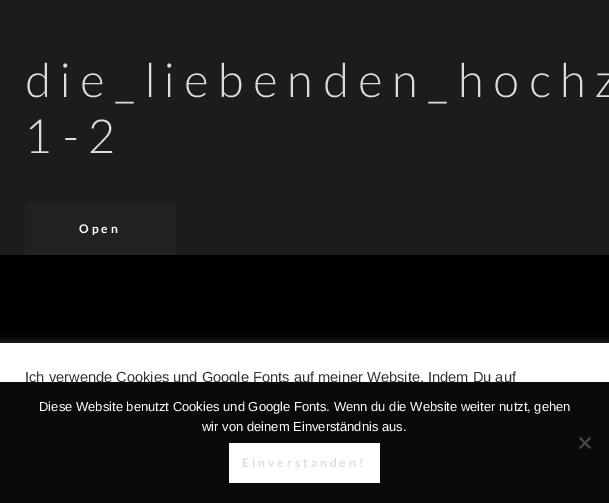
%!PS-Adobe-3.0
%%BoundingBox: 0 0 609 503
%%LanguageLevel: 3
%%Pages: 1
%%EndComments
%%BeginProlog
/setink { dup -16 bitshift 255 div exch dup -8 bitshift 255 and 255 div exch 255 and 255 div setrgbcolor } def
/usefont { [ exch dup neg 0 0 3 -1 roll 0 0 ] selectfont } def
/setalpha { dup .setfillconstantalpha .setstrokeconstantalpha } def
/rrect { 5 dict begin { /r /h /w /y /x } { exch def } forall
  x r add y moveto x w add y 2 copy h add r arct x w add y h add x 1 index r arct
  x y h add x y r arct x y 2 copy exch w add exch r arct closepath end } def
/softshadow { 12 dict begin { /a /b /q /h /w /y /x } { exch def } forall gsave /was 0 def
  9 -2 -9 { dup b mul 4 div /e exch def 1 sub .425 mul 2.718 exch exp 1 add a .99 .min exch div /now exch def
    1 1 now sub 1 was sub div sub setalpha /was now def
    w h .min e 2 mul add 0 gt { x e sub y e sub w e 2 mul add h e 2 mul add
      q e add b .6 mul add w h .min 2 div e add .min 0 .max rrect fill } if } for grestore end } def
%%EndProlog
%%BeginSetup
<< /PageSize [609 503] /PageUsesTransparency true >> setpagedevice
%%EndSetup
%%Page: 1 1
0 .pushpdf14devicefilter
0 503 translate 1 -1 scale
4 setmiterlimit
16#1C1C1C setink
0 0 609 503 rectfill
/Lato-Light 47 usefont
16#DDDDDD setink
25 97 moveto 9.4 0 (die_liebenden_hochz) ashow
25 153 moveto 9.4 0 (1-2) ashow
16#212121 setink
25 203 151 52 rectfill
/Lato-Bold 12 usefont
16#FFFFFF setink
79 233 moveto 3 0 (Open) ashow
16#000000 setink
0 255 609 88 rectfill
16#ACABAB setink
0 342 609 160 0 5 0.3 softshadow
16#FFFFFF setink
0 343 609 39 rectfill
/LiberationSans-Regular 14.65 usefont
16#333333 setink
25 382 moveto (Ich verwende Cookies und Google Fonts auf meiner Website. Indem Du auf) show
16#0A0A0A setink
0 382 609 121 rectfill
/LiberationSans-Regular 13 usefont
16#FFFFFF setink
39 411 moveto (Diese Website benutzt Cookies und Google Fonts. Wenn du die Website weiter nutzt, gehen) show
202 431 moveto (wir von deinem Einverständnis aus.) show
16#454545 setink
589.5 437 moveto 591 438.5 lineto 580.5 449 lineto 579 447.5 lineto closepath fill
579 438.5 moveto 580.5 437 lineto 591 447.5 lineto 589.5 449 lineto closepath fill
16#FFFFFF setink
229 443 151 40 rectfill
/Lato-Bold 12 usefont
16#DDDDDD setink
242 467 moveto 3 0 (Einverstanden!) ashow
.poppdf14devicefilter showpage
%%EOF
